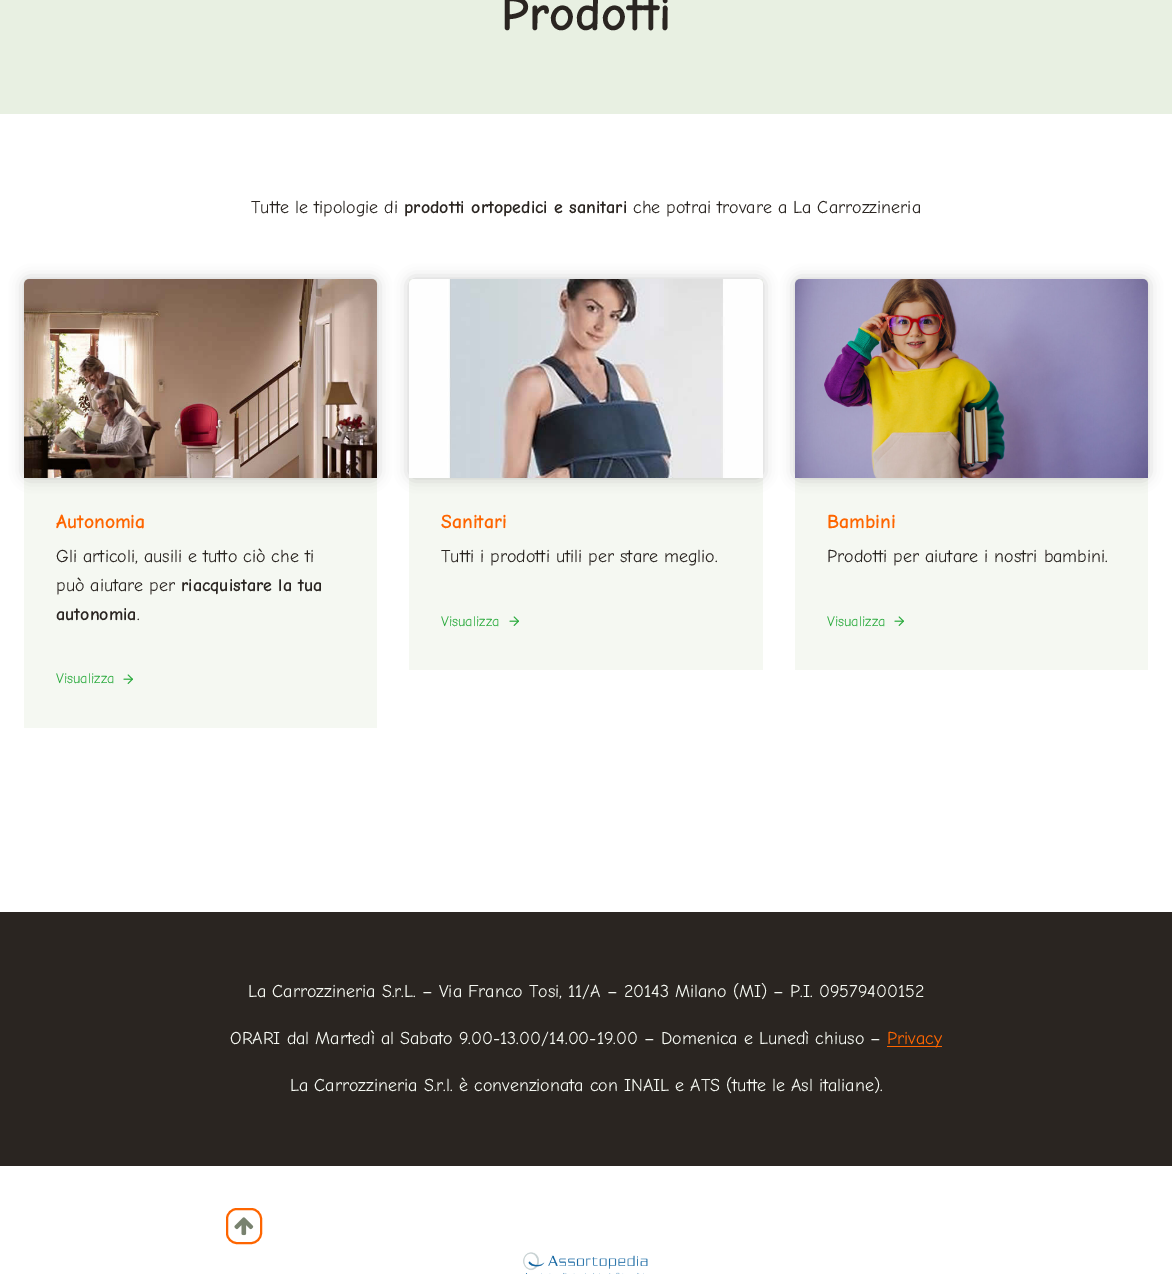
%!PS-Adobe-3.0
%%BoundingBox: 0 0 1172 1274
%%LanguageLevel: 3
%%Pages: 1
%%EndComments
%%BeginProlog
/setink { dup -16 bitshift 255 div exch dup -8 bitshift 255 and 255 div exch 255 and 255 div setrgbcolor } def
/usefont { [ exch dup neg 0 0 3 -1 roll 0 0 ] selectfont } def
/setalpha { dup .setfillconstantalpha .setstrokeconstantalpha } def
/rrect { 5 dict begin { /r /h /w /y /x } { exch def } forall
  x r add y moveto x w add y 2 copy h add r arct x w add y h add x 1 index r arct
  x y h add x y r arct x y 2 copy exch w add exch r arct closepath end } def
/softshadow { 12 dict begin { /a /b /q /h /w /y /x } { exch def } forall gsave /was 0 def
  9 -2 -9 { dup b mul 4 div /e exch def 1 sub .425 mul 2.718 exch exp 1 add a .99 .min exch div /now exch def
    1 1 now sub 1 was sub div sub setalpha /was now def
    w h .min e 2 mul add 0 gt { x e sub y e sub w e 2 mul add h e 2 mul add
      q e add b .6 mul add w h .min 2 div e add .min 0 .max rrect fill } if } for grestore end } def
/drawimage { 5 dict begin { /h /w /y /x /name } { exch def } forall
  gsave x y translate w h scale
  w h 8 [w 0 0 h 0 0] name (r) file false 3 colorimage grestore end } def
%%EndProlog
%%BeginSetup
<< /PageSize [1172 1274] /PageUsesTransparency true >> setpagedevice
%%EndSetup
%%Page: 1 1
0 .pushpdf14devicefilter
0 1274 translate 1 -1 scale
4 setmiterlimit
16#FFFFFF setink
0 0 1172 1274 rectfill
16#E8F0E2 setink
0 0 1172 114 rectfill
/ComicNeue-Bold 50 usefont
16#2A2521 setink
501 30 moveto (Prodotti) show
/ComicNeue-Regular 18 usefont
251 213 moveto (Tutte le tipologie di) show
/ComicNeue-Bold 18 usefont
404 213 moveto (prodotti ortopedici e sanitari) show
/ComicNeue-Regular 18 usefont
633 213 moveto (che potrai trovare a La Carrozzineria) show
16#F5F8F2 setink
24 279 353 449 rectfill
16#000000 setink
24 279 353 199 5 7 0.2 softshadow
(img1.raw) 24 279 353 199 drawimage
/ComicNeue-Bold 19.75 usefont
16#FE6500 setink
56 528 moveto (Autonomia) show
/ComicNeue-Regular 18 usefont
16#2A2521 setink
56 562 moveto (Gli articoli, ausili e tutto ciò che ti) show
56 591 moveto (può aiutare per) show
/ComicNeue-Bold 18 usefont
181 591 moveto (riacquistare la tua) show
56 620 moveto (autonomia) show
/ComicNeue-Regular 18 usefont
137 620 moveto (.) show
/ComicNeue-Regular 14.5 usefont
16#29AA3C setink
56 683 moveto (Visualizza) show
(img2.raw) 123 674 10 10 drawimage
16#F5F8F2 setink
409 279 354 391 rectfill
16#000000 setink
409 279 354 199 5 7 0.2 softshadow
(img3.raw) 409 279 354 199 drawimage
/ComicNeue-Bold 19.75 usefont
16#FE6500 setink
441 528 moveto (Sanitari) show
/ComicNeue-Regular 18 usefont
16#2A2521 setink
441 562 moveto (Tutti i prodotti utili per stare meglio.) show
/ComicNeue-Regular 14.5 usefont
16#29AA3C setink
441 626 moveto (Visualizza) show
(img2.raw) 509 616 10 10 drawimage
16#F5F8F2 setink
795 279 353 391 rectfill
16#000000 setink
795 279 353 199 5 7 0.2 softshadow
(img4.raw) 795 279 353 199 drawimage
/ComicNeue-Bold 19.75 usefont
16#FE6500 setink
827 528 moveto (Bambini) show
/ComicNeue-Regular 18 usefont
16#2A2521 setink
827 562 moveto (Prodotti per aiutare i nostri bambini.) show
/ComicNeue-Regular 14.5 usefont
16#29AA3C setink
827 626 moveto (Visualizza) show
(img2.raw) 894 616 10 10 drawimage
16#2A2521 setink
0 912 1172 254 rectfill
/ComicNeue-Regular 18 usefont
16#F5F8F2 setink
248 997 moveto (La Carrozzineria S.r.L. – Via Franco Tosi, 11/A – 20143 Milano \(MI\) – P.I. 09579400152) show
230 1044 moveto (ORARI dal Martedì al Sabato 9.00-13.00/14.00-19.00 – Domenica e Lunedì chiuso –) show
16#FE6500 setink
887 1046 55 1 rectfill
887 1044 moveto (Privacy) show
16#F5F8F2 setink
290 1091 moveto (La Carrozzineria S.r.l. è convenzionata con INAIL e ATS \(tutte le Asl italiane\).) show
(img5.raw) 523 1252 125 22 drawimage
16#FE6500 setink
2 setlinewidth
227 1209 34 34 10 rrect stroke
(img6.raw) 234 1217 20 19 drawimage
.poppdf14devicefilter showpage
%%EOF
